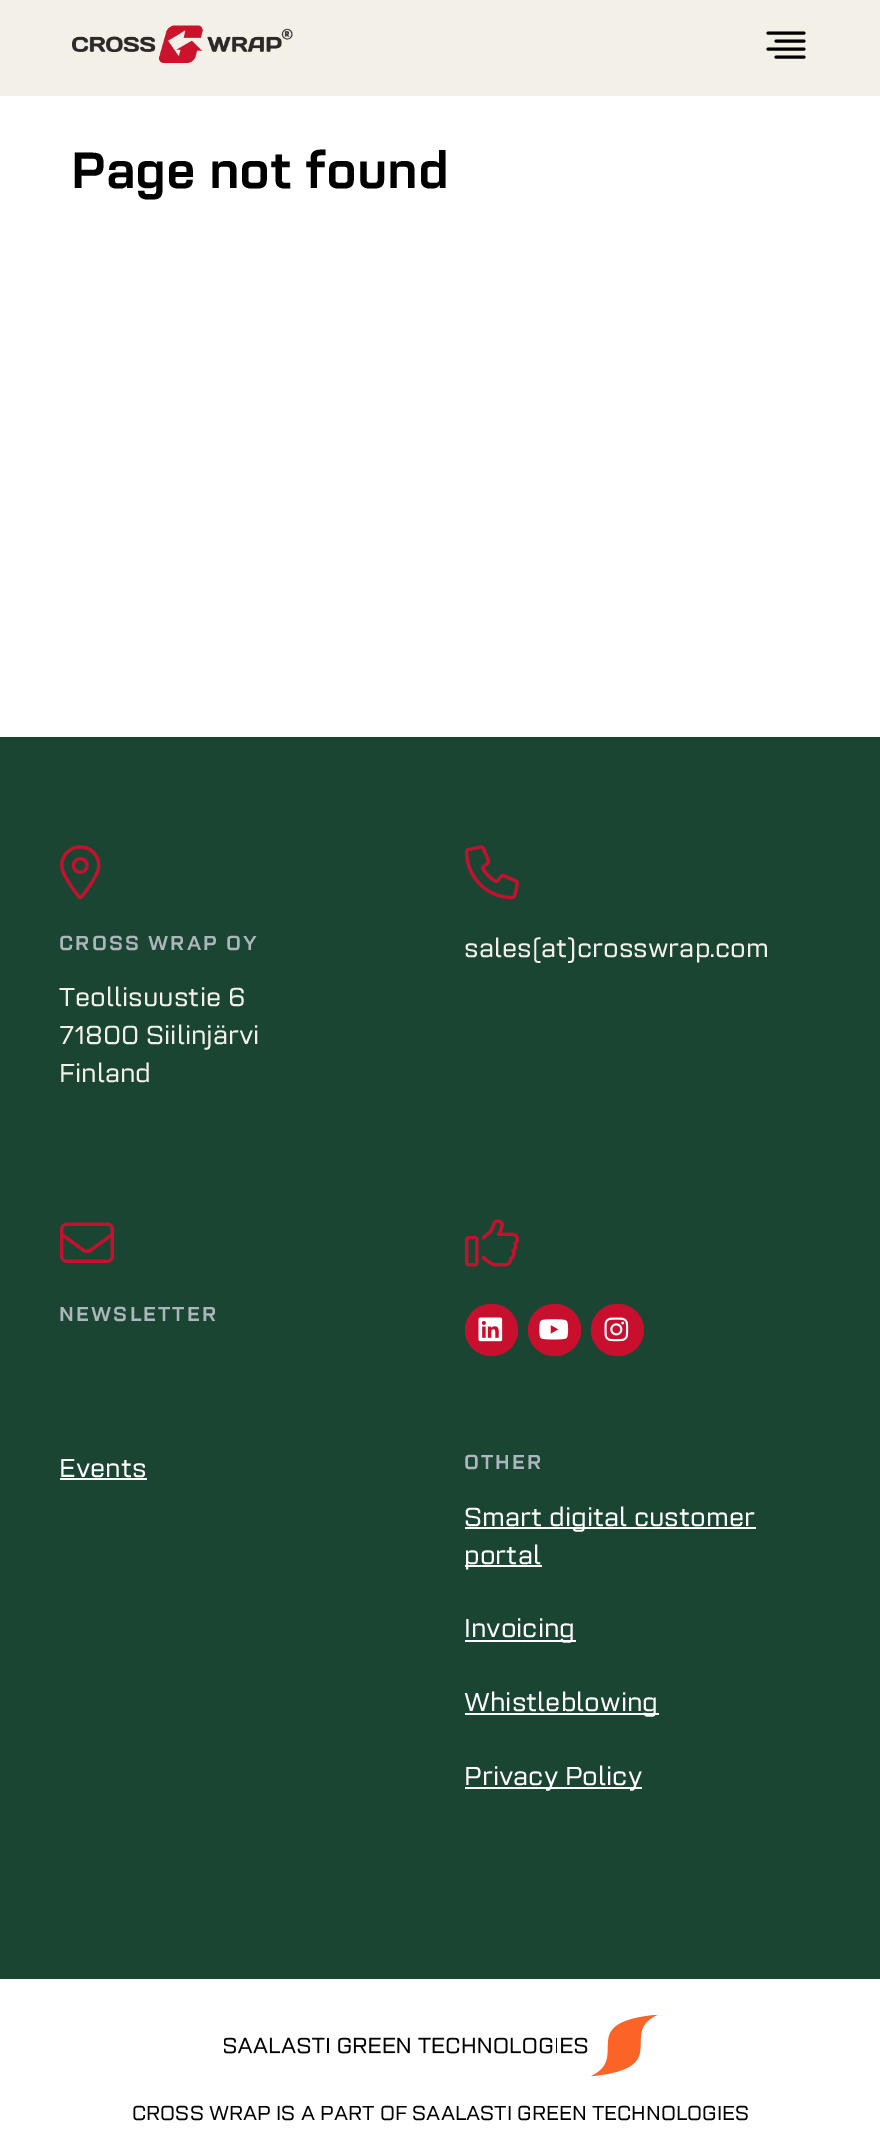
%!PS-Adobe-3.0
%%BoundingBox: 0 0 880 2153
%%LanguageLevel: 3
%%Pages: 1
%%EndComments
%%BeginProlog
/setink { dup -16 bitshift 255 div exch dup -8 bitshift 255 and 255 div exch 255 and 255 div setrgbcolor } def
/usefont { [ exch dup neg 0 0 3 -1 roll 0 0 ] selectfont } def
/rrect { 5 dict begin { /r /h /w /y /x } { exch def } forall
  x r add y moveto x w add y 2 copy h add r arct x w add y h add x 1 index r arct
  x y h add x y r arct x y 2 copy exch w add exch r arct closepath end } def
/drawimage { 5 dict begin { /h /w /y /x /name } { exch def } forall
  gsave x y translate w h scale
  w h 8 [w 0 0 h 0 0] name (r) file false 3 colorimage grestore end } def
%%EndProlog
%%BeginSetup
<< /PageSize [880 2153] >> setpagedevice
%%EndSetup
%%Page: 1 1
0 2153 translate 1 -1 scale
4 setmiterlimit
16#FFFFFF setink
0 0 880 2153 rectfill
16#F3F0E8 setink
0 0 880 96 rectfill
(img1.raw) 72 25 221 38 drawimage
16#000000 setink
3 setlinewidth
1 setlinecap
1 setlinejoin
804 41 moveto 776 41 lineto 804 33 moveto 768 33 lineto 804 49 moveto 768 49 lineto 804 57 moveto 776 57 lineto stroke
/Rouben-SemiBold 52.75 usefont
71 188 moveto (Page not found) show
16#1B4533 setink
0 737 880 1242 rectfill
(img2.raw) 60 845 41 55 drawimage
/Rouben-SemiBold 21 usefont
16#ADB5BD setink
59 950 moveto 2.1 0 (CROSS WRAP OY) ashow
/Rouben-Regular 27 usefont
16#F3F0E8 setink
[
    [(Teollisuustie 6) 59 1006]
    [(71800 Siilinjärvi) 59 1044]
    [(Finland) 59 1082]
] { aload pop moveto show } forall
(img3.raw) 465 845 54 55 drawimage
464 957 moveto (sales\(at\)crosswrap.com) show
(img4.raw) 60 1222 54 41 drawimage
/Rouben-SemiBold 21 usefont
16#ADB5BD setink
59 1321 moveto 2.1 0 (NEWSLETTER) ashow
(img5.raw) 465 1219 54 48 drawimage
16#C8102E setink
465 1304 53 52 26 rrect fill
(img6.raw) 478 1317 25 25 drawimage
528 1304 53 52 26 rrect fill
(img7.raw) 539 1319 30 21 drawimage
591 1304 53 52 26 rrect fill
(img8.raw) 604 1317 25 25 drawimage
/Rouben-Regular 27 usefont
16#FFFFFF setink
59 1477 moveto (Events) show
60 1478 87 2 rectfill
/Rouben-SemiBold 21 usefont
16#ADB5BD setink
464 1469 moveto 2.1 0 (OTHER) ashow
16#FFFFFF setink
465 1527 291 2 rectfill
/Rouben-Regular 27 usefont
464 1526 moveto (Smart digital customer) show
465 1565 77 2 rectfill
464 1564 moveto (portal) show
465 1640 111 2 rectfill
464 1637 moveto (Invoicing) show
465 1713 194 2 rectfill
464 1711 moveto (Whistleblowing) show
465 1787 177 2 rectfill
464 1785 moveto (Privacy Policy) show
(img9.raw) 224 2015 434 61 drawimage
/Rouben-Regular 21 usefont
16#000000 setink
132 2120 moveto (CROSS WRAP IS A PART OF SAALASTI GREEN TECHNOLOGIES) show
showpage
%%EOF
